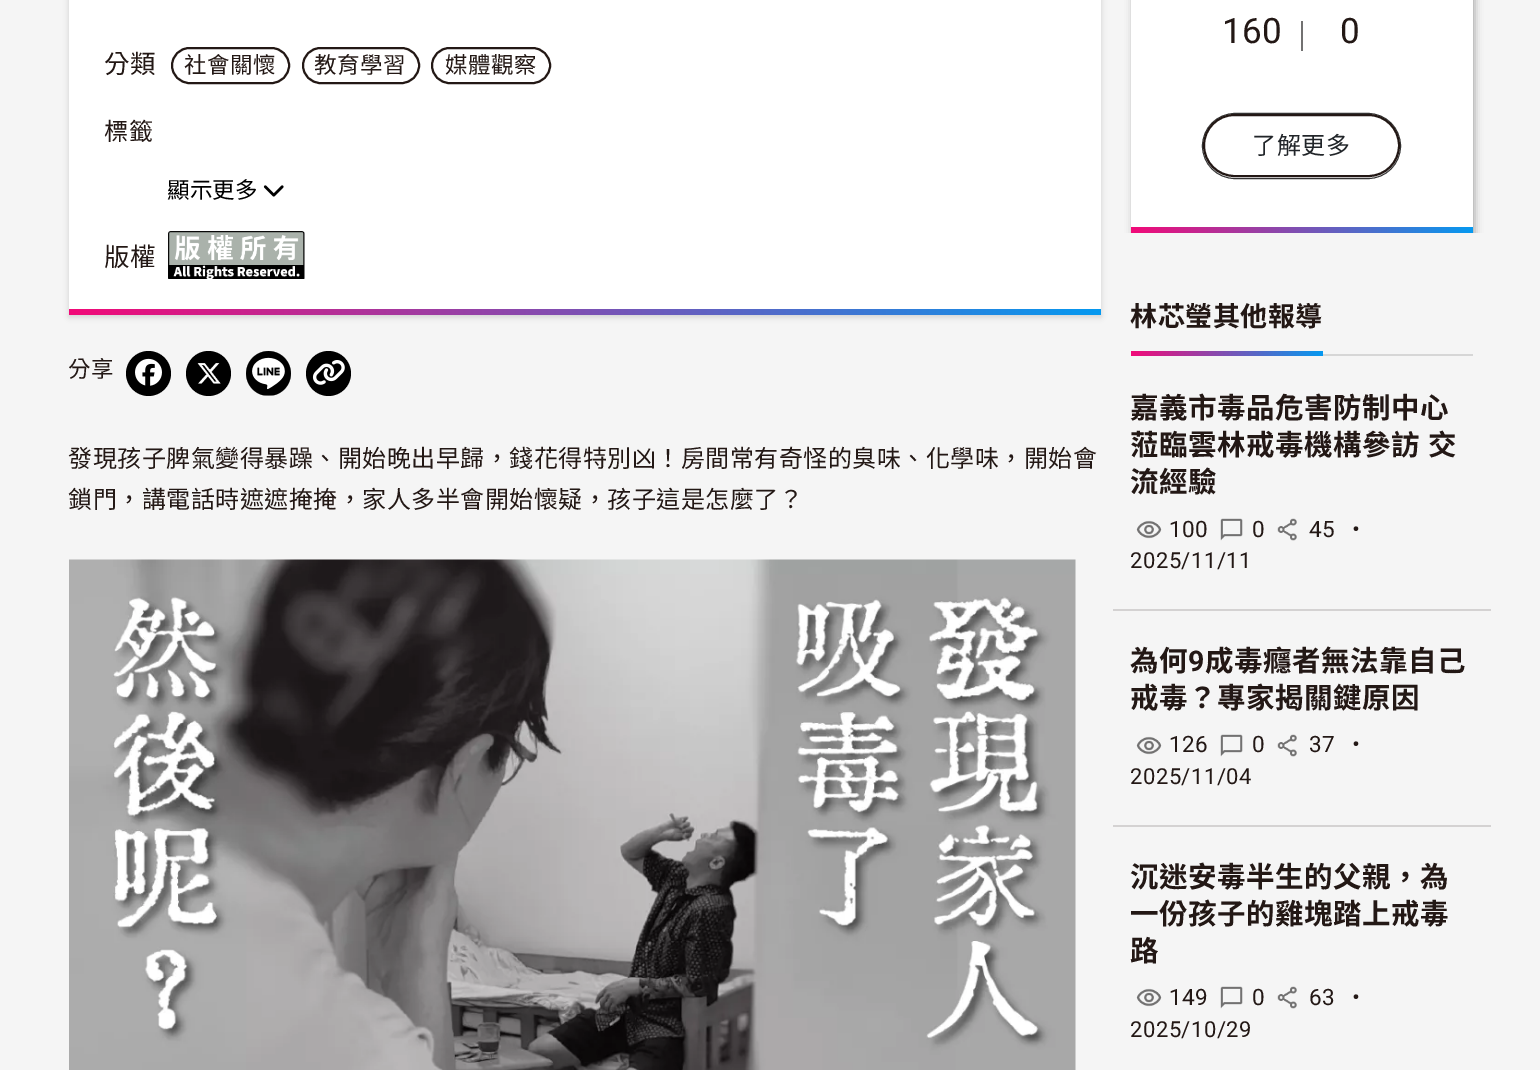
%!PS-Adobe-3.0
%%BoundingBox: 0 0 1540 1070
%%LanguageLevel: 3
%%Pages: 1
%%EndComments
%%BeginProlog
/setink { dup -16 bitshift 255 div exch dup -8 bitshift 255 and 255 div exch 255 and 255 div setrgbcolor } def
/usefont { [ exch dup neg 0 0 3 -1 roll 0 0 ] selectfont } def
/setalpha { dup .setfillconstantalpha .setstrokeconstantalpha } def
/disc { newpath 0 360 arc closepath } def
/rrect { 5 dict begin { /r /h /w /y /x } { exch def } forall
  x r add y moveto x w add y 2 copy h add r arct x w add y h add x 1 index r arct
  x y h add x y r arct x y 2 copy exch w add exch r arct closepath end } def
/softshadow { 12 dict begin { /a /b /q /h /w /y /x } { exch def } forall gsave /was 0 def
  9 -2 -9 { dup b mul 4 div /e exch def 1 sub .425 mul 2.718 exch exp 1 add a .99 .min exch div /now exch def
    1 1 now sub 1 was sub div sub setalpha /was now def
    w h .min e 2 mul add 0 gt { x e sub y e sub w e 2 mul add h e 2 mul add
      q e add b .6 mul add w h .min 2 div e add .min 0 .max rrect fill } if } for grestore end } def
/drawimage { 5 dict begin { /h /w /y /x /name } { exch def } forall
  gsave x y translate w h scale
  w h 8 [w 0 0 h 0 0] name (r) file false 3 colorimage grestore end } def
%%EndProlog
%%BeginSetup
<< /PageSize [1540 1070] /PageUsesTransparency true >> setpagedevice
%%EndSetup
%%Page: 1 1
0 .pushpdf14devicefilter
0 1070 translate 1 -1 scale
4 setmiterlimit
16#F5F5F5 setink
0 0 1540 1070 rectfill
16#000000 setink
69 -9 1032 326 0 3 0.15 softshadow
16#FFFFFF setink
69 0 1032 309 rectfill
/NotoSansTC-Regular 25.5 usefont
16#231815 setink
104 73 moveto 0.5 0 (分類) ashow
2 setlinewidth
172 48 117 35 17.5 rrect stroke
/NotoSansTC-Regular 22.5 usefont
184 73 moveto 0.5 0 (社會關懷) ashow
303 48 116 35 17.5 rrect stroke
314 73 moveto 0.5 0 (教育學習) ashow
432 48 118 35 17.5 rrect stroke
445 73 moveto 0.5 0 (媒體觀察) ashow
/NotoSansTC-Regular 24 usefont
104 140 moveto 0.5 0 (標籤) ashow
/NotoSansTC-Regular 22.5 usefont
16#000000 setink
167 198 moveto (顯示更多) show
(img1.raw) 263 185 21 12 drawimage
/NotoSansTC-Regular 25.5 usefont
16#231815 setink
104 266 moveto 0.5 0 (版權) ashow
(img2.raw) 168 231 137 48 drawimage
gsave 69 309 moveto 1101 309 lineto 1101 315 lineto 69 315 lineto closepath clip newpath
<< /ShadingType 2 /ColorSpace /DeviceRGB /Coords [1101 312 69 312] /Extend [true true] /Function << /FunctionType 2 /Domain [0 1] /C0 [0.02 0.6 0.941] /C1 [0.949 0.039 0.471] /N 1 >> >> shfill grestore
/NotoSansTC-Regular 22.5 usefont
68 377 moveto 0.5 0 (分享) ashow
16#000000 setink
148.5 373.5 22.5 disc fill
(img3.raw) 135 358 27 28 drawimage
208.5 373.5 22.5 disc fill
(img4.raw) 197 363 24 21 drawimage
16#FFFFFF setink
268.5 373.5 22.5 disc fill
(img5.raw) 246 351 45 45 drawimage
16#000000 setink
328.5 373.5 22.5 disc fill
(img6.raw) 312 360 33 25 drawimage
/NotoSansTC-Regular 24 usefont
16#231815 setink
68 467 moveto 0.5 0 (發現孩子脾氣變得暴躁、開始晚出早歸，錢花得特別凶！房間常有奇怪的臭味、化學味，開始會) ashow
68 508 moveto 0.5 0 (鎖門，講電話時遮遮掩掩，家人多半會開始懷疑，孩子這是怎麼了？) ashow
(img7.raw) 69 559 1007 511 drawimage
gsave
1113 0 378 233 rectclip
16#000000 setink
1133 -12 342 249 0 4 0.3 softshadow
grestore
16#FFFFFF setink
1131 0 342 227 rectfill
/Roboto-Regular 35 usefont
16#231815 setink
1222 43 moveto 0.5 0 (160) ashow
16#727171 setink
1301 21 2 30 rectfill
16#231815 setink
1340 43 moveto 0.5 0 (0) ashow
16#333333 setink
0.9 setlinewidth
1202.45 113.45 198.1 65.1 32.55 rrect stroke
16#231815 setink
2 setlinewidth
1204 115 195 61 30.5 rrect stroke
/NotoSansTC-Regular 24 usefont
16#212529 setink
1252 154 moveto 0.5 0 (了解更多) ashow
gsave 1131 227 moveto 1473 227 lineto 1473 233 lineto 1131 233 lineto closepath clip newpath
<< /ShadingType 2 /ColorSpace /DeviceRGB /Coords [1473 229 1131 230] /Extend [true true] /Function << /FunctionType 2 /Domain [0 1] /C0 [0.02 0.6 0.941] /C1 [0.949 0.039 0.471] /N 1 >> >> shfill grestore
16#D6D6D6 setink
1323 354 150 2 rectfill
/NotoSansTC-Bold 27 usefont
16#231815 setink
1130 326 moveto 0.5 0 (林芯瑩其他報導) ashow
gsave 1131 351 moveto 1323 351 lineto 1323 356 lineto 1131 356 lineto closepath clip newpath
<< /ShadingType 2 /ColorSpace /DeviceRGB /Coords [1323 353 1131 353] /Extend [true true] /Function << /FunctionType 2 /Domain [0 1] /C0 [0.02 0.6 0.941] /C1 [0.949 0.039 0.471] /N 1 >> >> shfill grestore
16#D4D2D2 setink
1113 609 378 2 rectfill
/NotoSansTC-Bold 28.5 usefont
16#231815 setink
1130 418 moveto 0.5 0 (嘉義市毒品危害防制中心) ashow
1130 455 moveto 1 0 32 0.5 0 (蒞臨雲林戒毒機構參訪 交) awidthshow
1130 492 moveto 0.5 0 (流經驗) ashow
(img8.raw) 1136 520 26 19 drawimage
/Roboto-Regular 22.5 usefont
1169 537 moveto 0.5 0 (100) ashow
(img9.raw) 1220 518 23 23 drawimage
1252 537 moveto 0.5 0 (0) ashow
(img10.raw) 1277 518 20 23 drawimage
1309 537 moveto 0.5 0 (45) ashow
/NotoSansTC-Regular 22 usefont
1345 537 moveto 0.5 0 (・) ashow
/Roboto-Regular 22 usefont
1130 568 moveto 0.5 0 (2025/11/11) ashow
16#D4D2D2 setink
1113 825 378 2 rectfill
/NotoSansTC-Bold 28.5 usefont
16#231815 setink
1130 671 moveto 0.5 0 (為何) ashow
/Roboto-Bold 28.5 usefont
1188 671 moveto 0.5 0 (9) ashow
/NotoSansTC-Bold 28.5 usefont
1205 671 moveto 0.5 0 (成毒癮者無法靠自己) ashow
1130 708 moveto 0.5 0 (戒毒？專家揭關鍵原因) ashow
(img8.raw) 1136 736 26 19 drawimage
/Roboto-Regular 22.5 usefont
1169 752 moveto 0.5 0 (126) ashow
(img9.raw) 1220 734 23 23 drawimage
1252 752 moveto 0.5 0 (0) ashow
(img10.raw) 1277 734 20 23 drawimage
1309 752 moveto 0.5 0 (37) ashow
/NotoSansTC-Regular 22 usefont
1345 752 moveto 0.5 0 (・) ashow
/Roboto-Regular 22 usefont
1130 784 moveto 0.5 0 (2025/11/04) ashow
/NotoSansTC-Bold 28.5 usefont
1130 887 moveto 0.5 0 (沉迷安毒半生的父親，為) ashow
1130 924 moveto 0.5 0 (一份孩子的雞塊踏上戒毒) ashow
1130 961 moveto 0.5 0 (路) ashow
(img8.raw) 1136 988 26 19 drawimage
/Roboto-Regular 22.5 usefont
1169 1005 moveto 0.5 0 (149) ashow
(img9.raw) 1220 986 23 23 drawimage
1252 1005 moveto 0.5 0 (0) ashow
(img10.raw) 1277 986 20 23 drawimage
1309 1005 moveto 0.5 0 (63) ashow
/NotoSansTC-Regular 22 usefont
1345 1005 moveto 0.5 0 (・) ashow
/Roboto-Regular 22 usefont
1130 1037 moveto 0.5 0 (2025/10/29) ashow
.poppdf14devicefilter showpage
%%EOF
